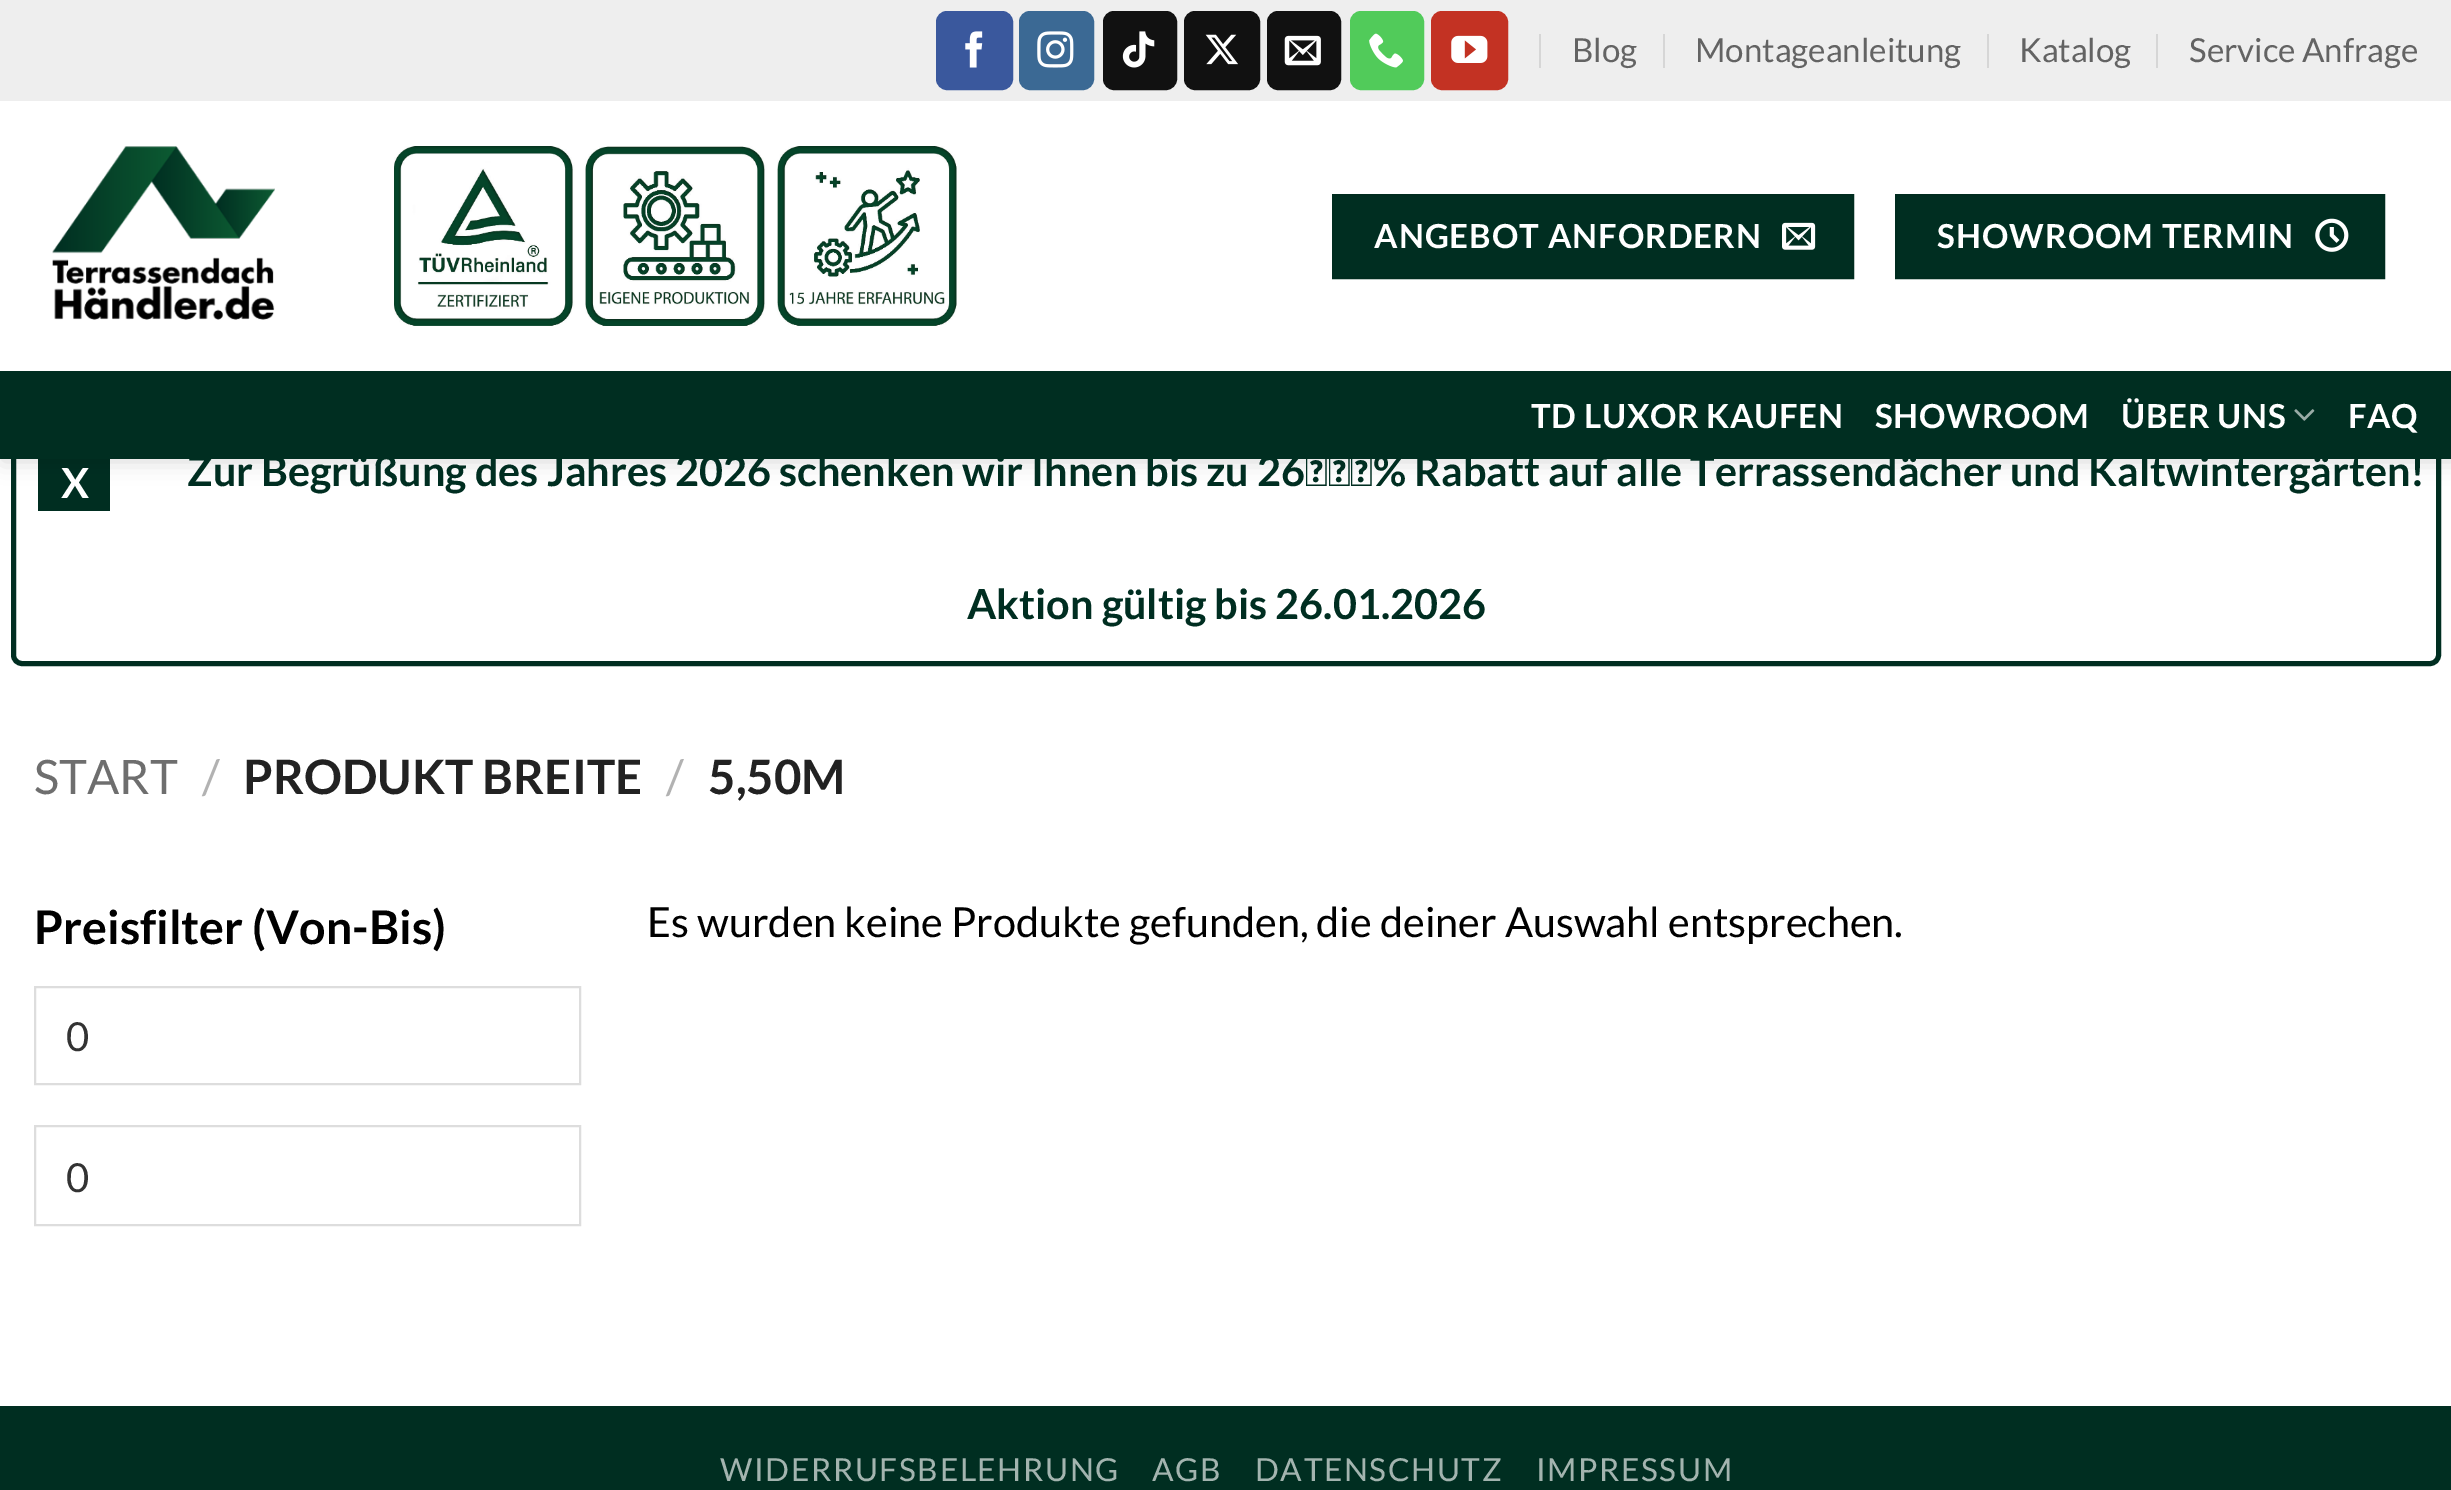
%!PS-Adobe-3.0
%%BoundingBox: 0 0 2451 1490
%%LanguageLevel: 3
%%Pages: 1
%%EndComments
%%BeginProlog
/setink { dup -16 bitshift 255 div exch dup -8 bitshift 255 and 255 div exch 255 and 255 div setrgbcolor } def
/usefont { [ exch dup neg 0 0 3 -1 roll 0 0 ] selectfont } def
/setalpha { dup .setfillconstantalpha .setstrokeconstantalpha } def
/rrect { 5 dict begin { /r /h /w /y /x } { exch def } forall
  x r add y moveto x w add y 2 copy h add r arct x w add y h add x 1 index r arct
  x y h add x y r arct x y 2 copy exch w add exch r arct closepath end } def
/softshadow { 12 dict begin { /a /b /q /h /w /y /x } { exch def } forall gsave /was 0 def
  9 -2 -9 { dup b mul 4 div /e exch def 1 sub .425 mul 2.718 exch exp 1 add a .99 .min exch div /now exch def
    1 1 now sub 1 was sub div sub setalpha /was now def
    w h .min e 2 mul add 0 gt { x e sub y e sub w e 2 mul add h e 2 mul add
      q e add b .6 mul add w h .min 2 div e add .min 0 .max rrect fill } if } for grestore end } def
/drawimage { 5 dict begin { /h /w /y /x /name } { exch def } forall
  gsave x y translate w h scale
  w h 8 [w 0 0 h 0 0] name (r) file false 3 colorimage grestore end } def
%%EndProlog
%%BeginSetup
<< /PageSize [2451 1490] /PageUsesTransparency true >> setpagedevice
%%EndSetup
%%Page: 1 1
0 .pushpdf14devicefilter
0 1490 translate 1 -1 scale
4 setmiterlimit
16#FFFFFF setink
0 0 2451 1490 rectfill
16#002E21 setink
5 setlinewidth
13.5 414.5 2425 249 8.5 rrect stroke
38 459 72 52 rectfill
16#000000 setink
2 2 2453 459 0 11 0.15 softshadow
16#EEEEEE setink
0 0 2451 101 rectfill
16#3A589D setink
937 12 75 77 10 rrect gsave fill grestore
2 setlinewidth
stroke
(img1.raw) 965 31 18 37 drawimage
16#3B6994 setink
1020 12 73 77 10 rrect gsave fill grestore
stroke
(img2.raw) 1037 31 37 37 drawimage
16#111111 setink
1104 12 72 77 10 rrect gsave fill grestore
stroke
(img3.raw) 1122 31 33 37 drawimage
1185 12 74 77 10 rrect gsave fill grestore
stroke
(img4.raw) 1205 34 33 31 drawimage
1268 12 72 77 10 rrect gsave fill grestore
stroke
(img5.raw) 1284 35 37 31 drawimage
16#51CB5A setink
1351 12 72 77 10 rrect gsave fill grestore
stroke
(img6.raw) 1369 33 34 35 drawimage
16#C33223 setink
1432 12 75 77 10 rrect gsave fill grestore
stroke
(img7.raw) 1451 35 37 28 drawimage
16#D6D6D6 setink
1539 34 2 34 rectfill
/Lato-Regular 33.1 usefont
16#636363 setink
1572 62 moveto (Blog) show
16#D6D6D6 setink
1663 34 2 34 rectfill
16#636363 setink
1695 62 moveto (Montageanleitung) show
16#D6D6D6 setink
1987 34 2 34 rectfill
16#636363 setink
2019 62 moveto (Katalog) show
16#D6D6D6 setink
2156 34 2 34 rectfill
16#636363 setink
2189 62 moveto (Service Anfrage) show
16#FFFFFF setink
0 101 2451 270 rectfill
(img8.raw) 52 146 223 174 drawimage
(img9.raw) 394 146 563 180 drawimage
16#002E21 setink
1333 195 moveto 1853 195 lineto 1853 278 lineto 1333 278 lineto closepath gsave fill grestore
16#002C1F setink
stroke
/Lato-Bold 33.1 usefont
16#FFFFFF setink
1374 248 moveto 1 0 (ANGEBOT ANFORDERN) ashow
(img10.raw) 1782 222 34 28 drawimage
16#002E21 setink
1896 195 moveto 2384 195 lineto 2384 278 lineto 1896 278 lineto closepath gsave fill grestore
16#002C1F setink
stroke
16#FFFFFF setink
1937 248 moveto 1 0 (SHOWROOM TERMIN) ashow
(img11.raw) 2315 218 34 34 drawimage
16#002E21 setink
0 371 2451 88 rectfill
16#FFFFFF setink
1531 428 moveto 0.7 0 (TD LUXOR KAUFEN) ashow
1875 428 moveto 0.7 0 (SHOWROOM) ashow
2121 428 moveto 0.7 0 (ÜBER UNS) ashow
(img12.raw) 2294 409 21 12 drawimage
2348 428 moveto 0.7 0 (FAQ) ashow
/Lato-Bold 41.4 usefont
61 498 moveto (X) show
16#002E21 setink
187 486 moveto (Zur Begrüßung des Jahres 2026 schenken wir Ihnen bis zu 26 % Rabatt auf alle Terrassendächer und Kaltwintergärten!) show
967 619 moveto (Aktion gültig bis 26.01.2026) show
/Lato-Regular 47.5 usefont
16#6E6E6E setink
34 794 moveto (START) show
16#B2B2B2 setink
202 794 moveto (/) show
/Lato-Bold 47.5 usefont
16#222222 setink
243 794 moveto (PRODUKT BREITE) show
/Lato-Regular 47.5 usefont
16#B2B2B2 setink
666 794 moveto (/) show
/Lato-Bold 47.5 usefont
16#222222 setink
708 794 moveto (5,50M) show
/Lato-Bold 46.5 usefont
16#000000 setink
34 944 moveto (Preisfilter \(Von-Bis\)) show
16#DDDDDD setink
35 987 545 97 rectstroke
/Lato-Regular 40 usefont
16#333333 setink
66 1051 moveto (0) show
16#DDDDDD setink
35 1126 545 99 rectstroke
16#333333 setink
66 1192 moveto (0) show
/Lato-Regular 41.4 usefont
16#000000 setink
647 937 moveto (Es wurden keine Produkte gefunden, die deiner Auswahl entsprechen.) show
16#002E21 setink
0 1406 2451 84 rectfill
/Lato-Regular 31.7 usefont
16#A3B4AF setink
720 1481 moveto 1.6 0 (WIDERRUFSBELEHRUNG) ashow
1152 1481 moveto 1.6 0 (AGB) ashow
1255 1481 moveto 1.6 0 (DATENSCHUTZ) ashow
1536 1481 moveto 1.6 0 (IMPRESSUM) ashow
.poppdf14devicefilter showpage
%%EOF
